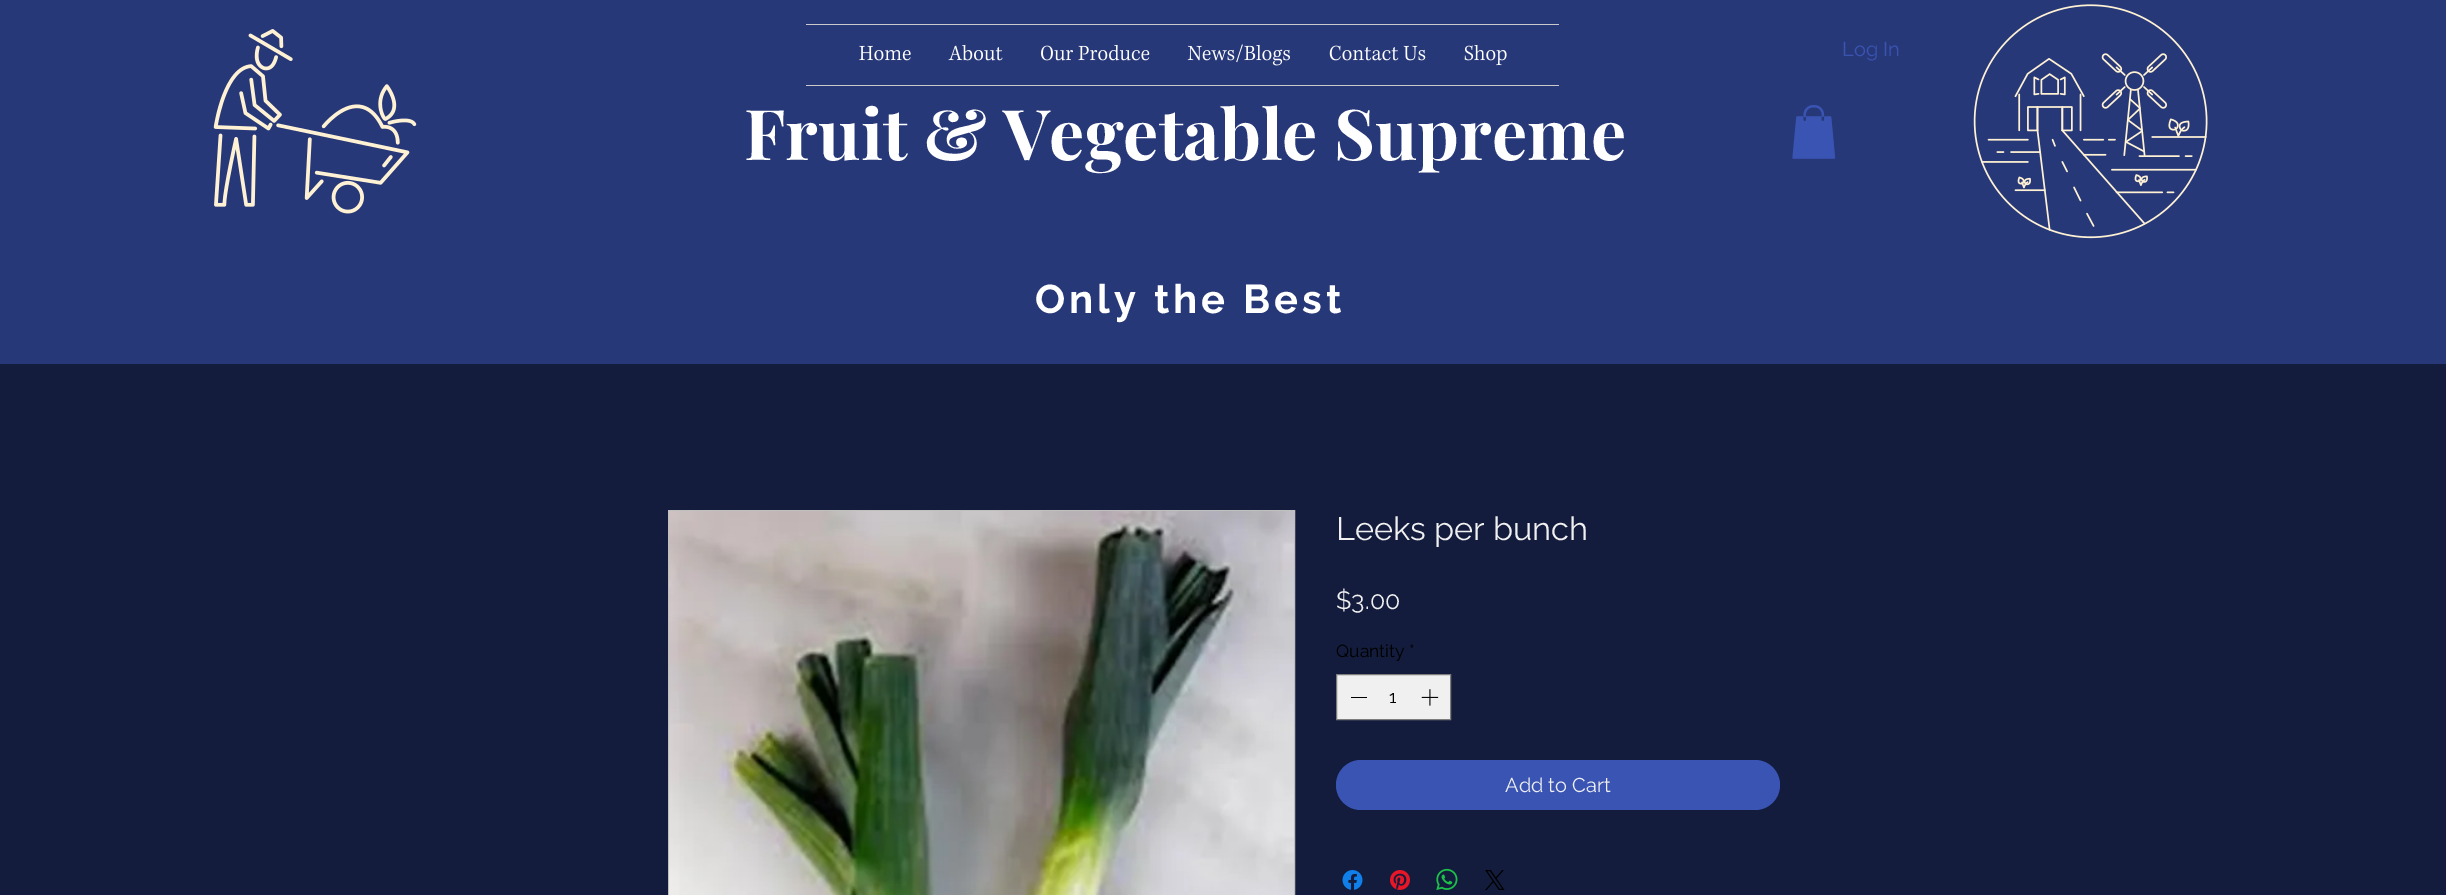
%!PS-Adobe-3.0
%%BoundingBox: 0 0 2446 895
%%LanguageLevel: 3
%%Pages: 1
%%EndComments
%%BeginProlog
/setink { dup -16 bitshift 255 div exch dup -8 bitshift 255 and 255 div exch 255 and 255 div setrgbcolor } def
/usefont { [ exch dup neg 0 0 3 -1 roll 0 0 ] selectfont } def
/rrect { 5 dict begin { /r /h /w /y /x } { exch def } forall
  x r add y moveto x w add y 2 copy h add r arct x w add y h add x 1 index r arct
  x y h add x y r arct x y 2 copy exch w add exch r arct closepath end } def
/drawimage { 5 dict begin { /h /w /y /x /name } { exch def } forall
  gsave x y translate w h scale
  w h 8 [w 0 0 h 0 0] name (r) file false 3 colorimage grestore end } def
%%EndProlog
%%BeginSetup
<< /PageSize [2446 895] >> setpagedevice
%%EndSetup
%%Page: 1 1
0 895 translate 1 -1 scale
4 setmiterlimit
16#131C3C setink
0 0 2446 895 rectfill
16#273878 setink
0 0 2446 364 rectfill
(img1.raw) 213 29 204 185 drawimage
16#CACACA setink
806 24 753 1 rectfill
806 85 753 1 rectfill
(img2.raw) 859 45 52 16 drawimage
(img3.raw) 948 44 55 17 drawimage
(img4.raw) 1041 44 109 17 drawimage
(img5.raw) 1187 44 103 22 drawimage
(img6.raw) 1329 45 97 16 drawimage
(img7.raw) 1464 44 43 22 drawimage
/Raleway-Regular 20 usefont
16#3A54B4 setink
1842 56 moveto (Log In) show
(img8.raw) 1973 4 235 235 drawimage
/PlayfairDisplay-Bold 70 usefont
16#FFFFFF setink
744 160 moveto (Fruit & Vegetable Supreme) show
(img9.raw) 1792 105 44 54 drawimage
/Raleway-Bold 40 usefont
1035 313 moveto 4 0 (Only the Best) ashow
16#C0C0C0 setink
668.5 510.5 626 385 rectstroke
(img10.raw) 669 511 625 384 drawimage
/Raleway-Regular 32.5 usefont
16#F0F0F0 setink
1336 540 moveto (Leeks per bunch) show
/Raleway-Regular 25 usefont
1336 609 moveto ($3.00) show
/Raleway-Regular 17.5 usefont
16#000000 setink
1336 657 moveto (Quantity) show
1409 657 moveto (*) show
16#F0F0F0 setink
1336.5 674.5 moveto 1450.5 674.5 lineto 1450.5 719.5 lineto 1336.5 719.5 lineto closepath gsave fill grestore
16#7D7D7D setink
stroke
16#000000 setink
1351 697 16 1 rectfill
1389 703 moveto (1) show
(img11.raw) 1421 689 18 17 drawimage
16#3A54B4 setink
1336 760 444 50 25 rrect fill
/Raleway-Regular 20 usefont
16#F0F0F0 setink
1505 792 moveto (Add to Cart) show
(img12.raw) 1342 870 21 20 drawimage
(img13.raw) 1390 870 20 20 drawimage
(img14.raw) 1436 868 22 23 drawimage
(img15.raw) 1485 870 20 20 drawimage
showpage
%%EOF
